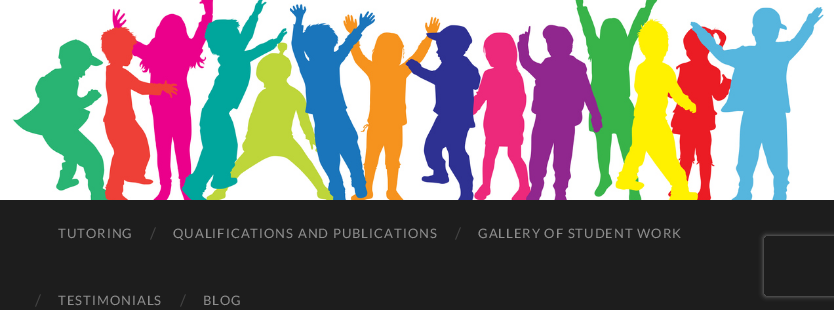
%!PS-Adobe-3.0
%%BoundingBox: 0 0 834 310
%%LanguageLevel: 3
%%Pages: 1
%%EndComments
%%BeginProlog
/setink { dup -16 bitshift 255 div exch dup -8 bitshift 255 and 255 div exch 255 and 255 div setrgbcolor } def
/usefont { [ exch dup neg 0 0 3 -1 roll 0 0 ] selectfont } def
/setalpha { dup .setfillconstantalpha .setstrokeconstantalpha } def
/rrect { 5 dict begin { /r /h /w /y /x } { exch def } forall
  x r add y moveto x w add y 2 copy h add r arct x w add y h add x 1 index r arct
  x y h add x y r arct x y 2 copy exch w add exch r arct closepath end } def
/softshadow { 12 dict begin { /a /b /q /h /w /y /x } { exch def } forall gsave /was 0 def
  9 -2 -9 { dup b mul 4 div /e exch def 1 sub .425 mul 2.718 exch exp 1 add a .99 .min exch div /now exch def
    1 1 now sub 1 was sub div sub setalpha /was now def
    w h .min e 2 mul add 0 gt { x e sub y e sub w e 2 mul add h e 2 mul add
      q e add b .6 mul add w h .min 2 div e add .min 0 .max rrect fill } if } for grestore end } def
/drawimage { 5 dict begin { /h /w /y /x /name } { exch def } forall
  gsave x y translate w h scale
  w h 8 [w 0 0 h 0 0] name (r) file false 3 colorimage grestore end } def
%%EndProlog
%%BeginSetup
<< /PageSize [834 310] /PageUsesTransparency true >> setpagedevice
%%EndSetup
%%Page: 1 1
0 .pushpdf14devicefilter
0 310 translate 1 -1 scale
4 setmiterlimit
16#FFFFFF setink
0 0 834 310 rectfill
(img1.raw) 0 0 834 200 drawimage
16#1D1D1D setink
0 200 834 110 rectfill
/Lato-Regular 13 usefont
16#8E8E8E setink
58 238 moveto 1 0 (TUTORING) ashow
/Lato-Regular 16 usefont
16#444444 setink
150 239 moveto (/) show
/Lato-Regular 13 usefont
16#8E8E8E setink
173 238 moveto 1 0 (QUALIFICATIONS AND PUBLICATIONS) ashow
/Lato-Regular 16 usefont
16#444444 setink
455 239 moveto (/) show
/Lato-Regular 13 usefont
16#8E8E8E setink
478 238 moveto 1 0 (GALLERY OF STUDENT WORK) ashow
/Lato-Regular 16 usefont
16#444444 setink
35 306 moveto (/) show
/Lato-Regular 13 usefont
16#8E8E8E setink
58 305 moveto 1 0 (TESTIMONIALS) ashow
/Lato-Regular 16 usefont
16#444444 setink
180 306 moveto (/) show
/Lato-Regular 13 usefont
16#8E8E8E setink
203 305 moveto 1 0 (BLOG) ashow
gsave
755 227 moveto 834 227 lineto 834 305 lineto 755 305 lineto closepath 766 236 moveto 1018 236 lineto 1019 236 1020 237 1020 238 curveto 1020 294 lineto 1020 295 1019 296 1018 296 curveto 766 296 lineto 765 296 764 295 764 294 curveto 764 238 lineto 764 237 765 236 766 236 curveto closepath eoclip newpath
16#808080 setink
764 236 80 60 2 2.5 1 softshadow
grestore
.poppdf14devicefilter showpage
%%EOF
